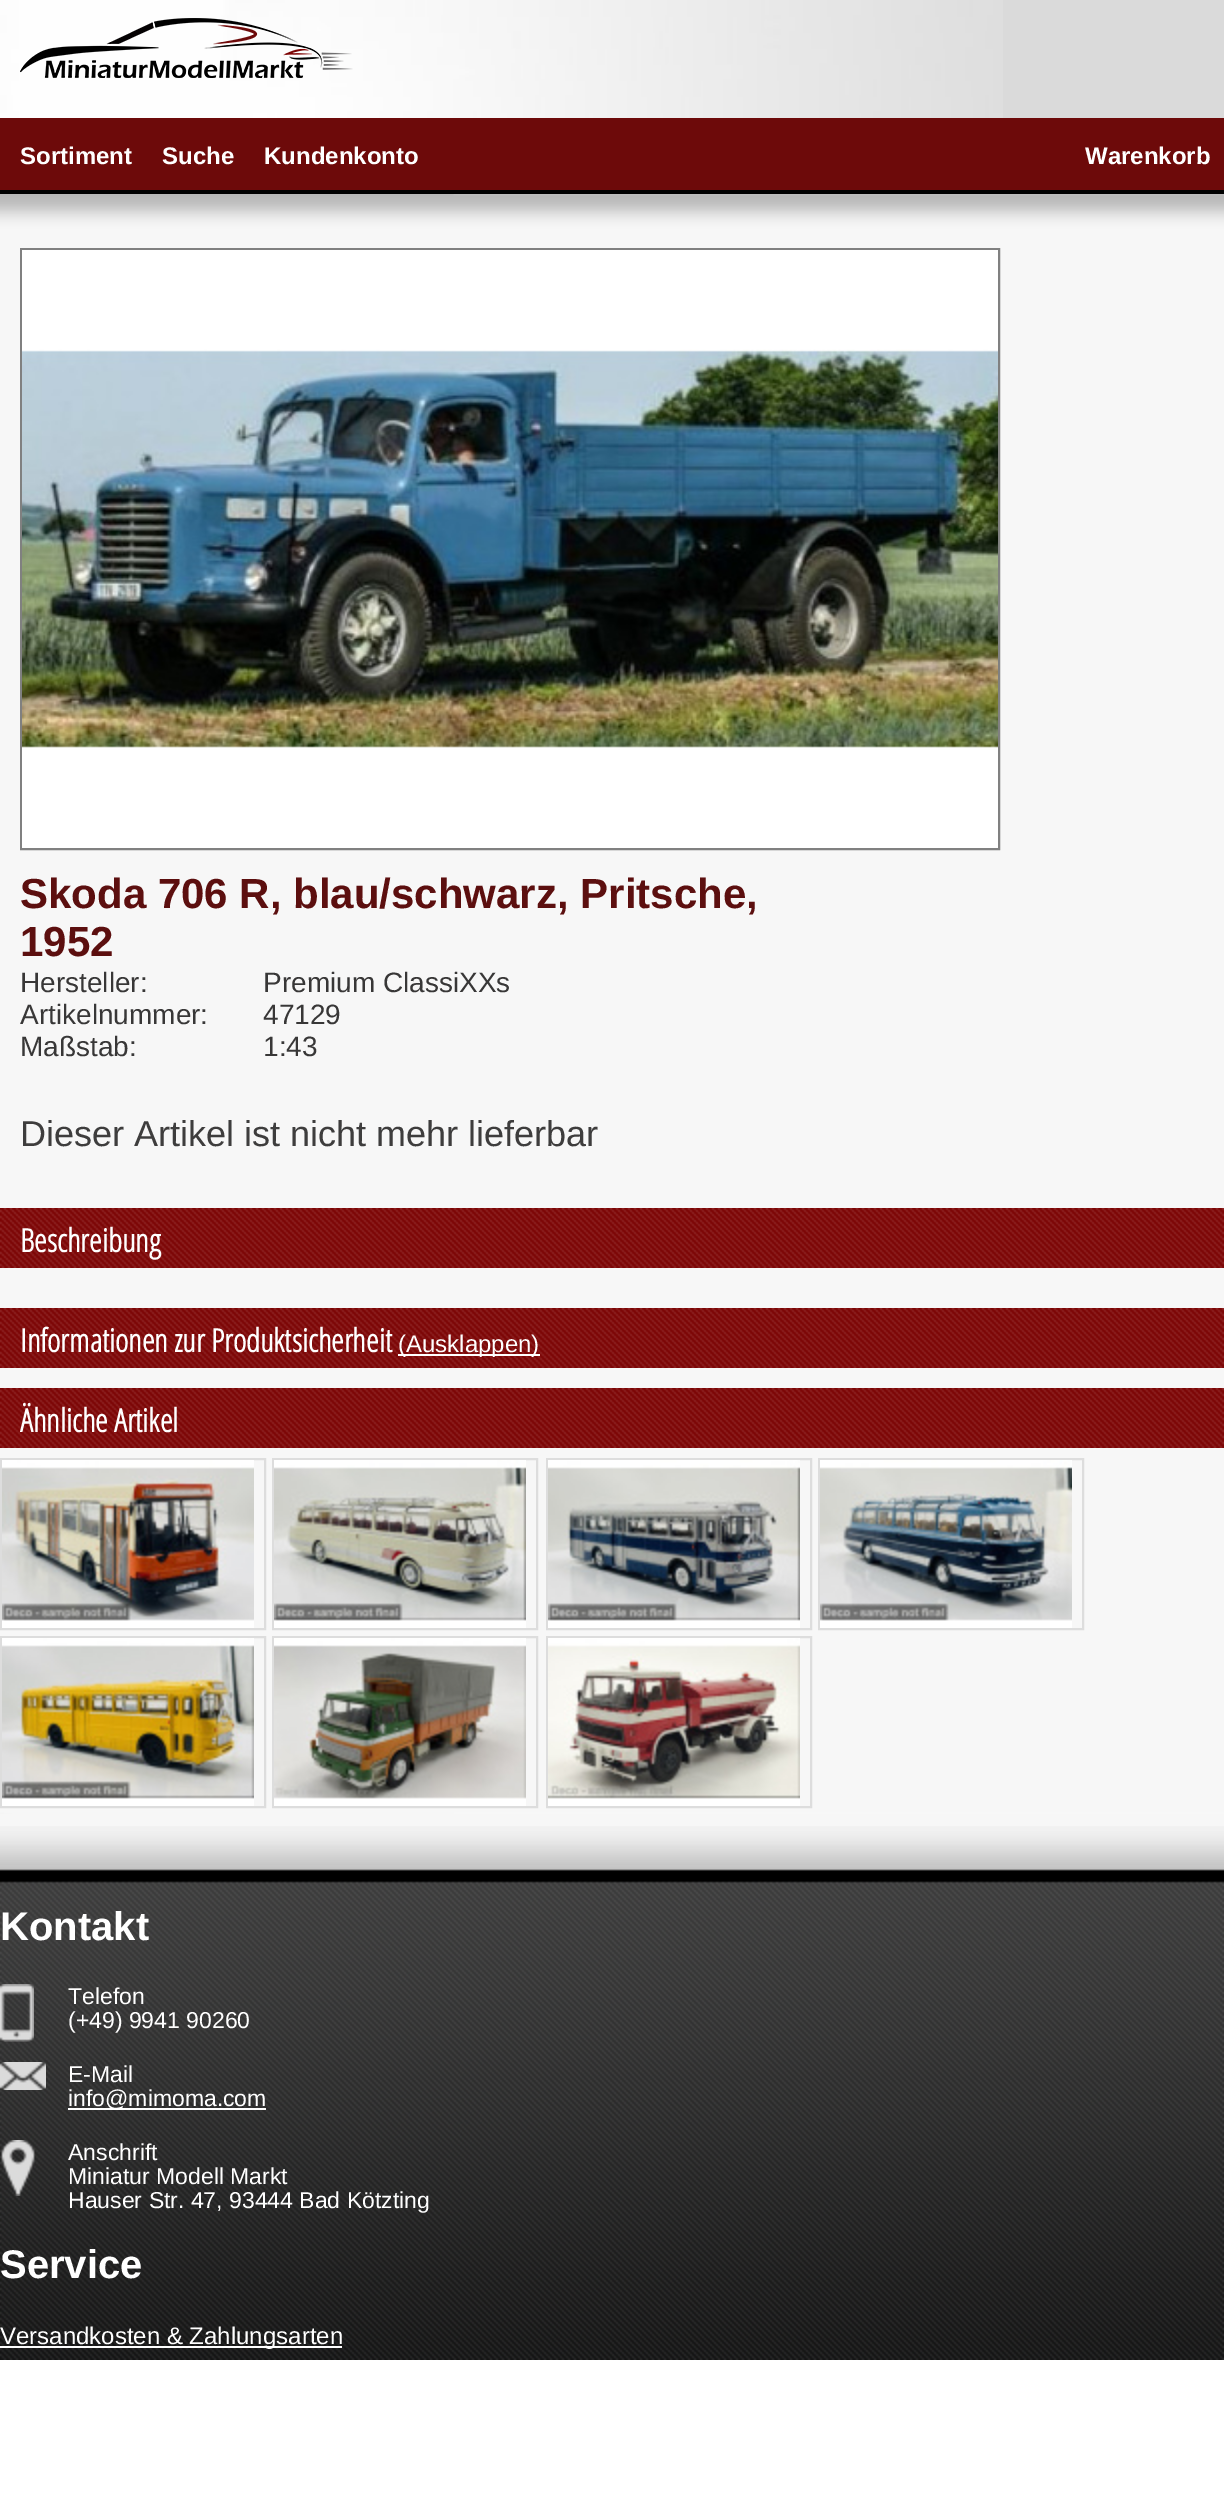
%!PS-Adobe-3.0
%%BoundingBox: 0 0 1224 2509
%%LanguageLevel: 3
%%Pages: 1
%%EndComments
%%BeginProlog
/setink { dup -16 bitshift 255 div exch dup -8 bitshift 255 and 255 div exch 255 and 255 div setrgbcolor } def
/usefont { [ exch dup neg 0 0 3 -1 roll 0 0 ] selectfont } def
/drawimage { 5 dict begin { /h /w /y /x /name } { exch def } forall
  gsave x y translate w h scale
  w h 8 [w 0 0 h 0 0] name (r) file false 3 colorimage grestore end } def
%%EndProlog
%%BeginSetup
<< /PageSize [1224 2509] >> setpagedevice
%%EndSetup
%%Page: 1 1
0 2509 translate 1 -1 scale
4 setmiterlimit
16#FFFFFF setink
0 0 1224 2509 rectfill
16#DADADA setink
1003 0 221 118 rectfill
(img1.raw) 0 0 1003 118 drawimage
(img2.raw) 20 18 333 60 drawimage
16#6D0A0A setink
0 118 1224 72 rectfill
16#000000 setink
0 190 1224 4 rectfill
/LiberationSans-Bold 24 usefont
16#FFFFFF setink
[
    [(Sortiment) 20 164]
    [(Suche) 162 164]
    [(Kundenkonto) 264 164]
    [(Warenkorb) 1085 164]
] { aload pop moveto show } forall
(img3.raw) 0 194 1224 1620 drawimage
16#808080 setink
2 setlinewidth
21 249 978 600 rectstroke
(img4.raw) 22 250 976 598 drawimage
/LiberationSans-Bold 42 usefont
16#5C0F0F setink
20 908 moveto (Skoda 706 R, blau/schwarz, Pritsche,) show
20 956 moveto (1952) show
/LiberationSans-Regular 28 usefont
16#383737 setink
[
    [(Hersteller:) 20 992]
    [(Premium ClassiXXs) 263 992]
    [(Artikelnummer:) 20 1024]
    [(47129) 263 1024]
    [(Maßstab:) 20 1056]
    [(1:43) 263 1056]
] { aload pop moveto show } forall
/LiberationSans-Regular 36 usefont
16#3E3D3D setink
20 1146 moveto (Dieser Artikel ist nicht mehr lieferbar) show
(img5.raw) 0 1208 1224 60 drawimage
/OpenSansCondensed-Bold 32 usefont
16#FFFFFF setink
20 1252 moveto (Beschreibung) show
(img5.raw) 0 1308 1224 60 drawimage
20 1352 moveto (Informationen zur Produktsicherheit) show
398 1354 142 2 rectfill
/LiberationSans-Regular 24 usefont
398 1352 moveto (\(Ausklappen\)) show
(img5.raw) 0 1388 1224 60 drawimage
/OpenSansCondensed-Bold 32 usefont
20 1432 moveto (Ähnliche Artikel) show
16#DDDDDD setink
1 1459 264 170 rectstroke
273 1459 264 170 rectstroke
547 1459 264 170 rectstroke
819 1459 264 170 rectstroke
(img6.raw) 2 1460 252 168 drawimage
(img7.raw) 274 1460 252 168 drawimage
(img8.raw) 548 1460 252 168 drawimage
(img9.raw) 820 1460 252 168 drawimage
1 1637 264 170 rectstroke
273 1637 264 170 rectstroke
547 1637 264 170 rectstroke
(img10.raw) 2 1638 252 168 drawimage
(img11.raw) 274 1638 252 168 drawimage
(img12.raw) 548 1638 252 168 drawimage
16#F7F7F7 setink
0 1814 1224 57 rectfill
(img13.raw) 0 1826 1224 534 drawimage
/LiberationSans-Bold 40 usefont
16#FFFFFF setink
0 1940 moveto (Kontakt) show
(img14.raw) 0 1984 34 58 drawimage
/LiberationSans-Regular 23 usefont
68 2004 moveto (Telefon) show
68 2028 moveto (\(+49\) 9941 90260) show
(img15.raw) 0 2062 46 28 drawimage
68 2082 moveto (E-Mail) show
68 2108 198 2 rectfill
68 2106 moveto (info@mimoma.com) show
(img16.raw) 1 2140 34 56 drawimage
[
    [(Anschrift) 68 2160]
    [(Miniatur Modell Markt) 68 2184]
    [(Hauser Str. 47, 93444 Bad Kötzting) 68 2208]
] { aload pop moveto show } forall
/LiberationSans-Bold 40 usefont
0 2278 moveto (Service) show
0 2346 342 2 rectfill
/LiberationSans-Regular 24 usefont
0 2344 moveto (Versandkosten & Zahlungsarten) show
showpage
%%EOF
